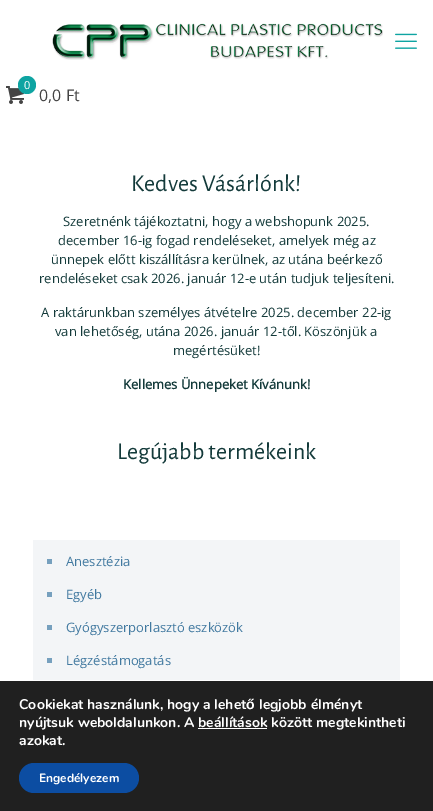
%!PS-Adobe-3.0
%%BoundingBox: 0 0 433 811
%%LanguageLevel: 3
%%Pages: 1
%%EndComments
%%BeginProlog
/setink { dup -16 bitshift 255 div exch dup -8 bitshift 255 and 255 div exch 255 and 255 div setrgbcolor } def
/usefont { [ exch dup neg 0 0 3 -1 roll 0 0 ] selectfont } def
/disc { newpath 0 360 arc closepath } def
/rrect { 5 dict begin { /r /h /w /y /x } { exch def } forall
  x r add y moveto x w add y 2 copy h add r arct x w add y h add x 1 index r arct
  x y h add x y r arct x y 2 copy exch w add exch r arct closepath end } def
/drawimage { 5 dict begin { /h /w /y /x /name } { exch def } forall
  gsave x y translate w h scale
  w h 8 [w 0 0 h 0 0] name (r) file false 3 colorimage grestore end } def
%%EndProlog
%%BeginSetup
<< /PageSize [433 811] >> setpagedevice
%%EndSetup
%%Page: 1 1
0 811 translate 1 -1 scale
4 setmiterlimit
16#FFFFFF setink
0 0 433 811 rectfill
(img1.raw) 52 23 331 37 drawimage
(img2.raw) 395 33 22 16 drawimage
(img3.raw) 6 86 18 18 drawimage
16#0EA4A2 setink
27 85 9 disc fill
/OpenSans-Regular 11 usefont
16#FFFFFF setink
24 89 moveto (0) show
/OpenSans-Regular 16 usefont
16#444444 setink
39 101 moveto (0,0 Ft) show
/AlegreyaSans-Regular 24 usefont
16#133A3A setink
131 191 moveto (Kedves Vásárlónk!) show
/OpenSans-Regular 13 usefont
[
    [(Szeretnénk tájékoztatni, hogy a webshopunk 2025.) 63 226]
    [(december 16-ig fogad rendeléseket, amelyek még az) 58 245]
    [(ünnepek előtt kiszállításra kerülnek, az utána beérkező) 51 264]
    [(rendeléseket csak 2026. január 12-e után tudjuk teljesíteni.) 39 283]
    [(A raktárunkban személyes átvételre 2025. december 22-ig) 41 317]
    [(van lehetőség, utána 2026. január 12-től. Köszönjük a) 55 336]
    [(megértésüket!) 173 355]
] { aload pop moveto show } forall
/OpenSans-Bold 13 usefont
123 389 moveto (Kellemes Ünnepeket Kívánunk!) show
/AlegreyaSans-Regular 24 usefont
117 459 moveto (Legújabb termékeink) show
16#F3F5F7 setink
33 540 367 140 rectfill
16#76A0BE setink
47 559 5 5 rectfill
/OpenSans-Regular 13 usefont
16#4179A0 setink
66 566 moveto (Anesztézia) show
16#76A0BE setink
47 592 5 5 rectfill
16#4179A0 setink
66 599 moveto (Egyéb) show
16#76A0BE setink
47 625 5 5 rectfill
16#4179A0 setink
66 632 moveto (Gyógyszerporlasztó eszközök) show
16#76A0BE setink
47 658 5 5 rectfill
16#4179A0 setink
66 665 moveto (Légzéstámogatás) show
16#202020 setink
0 681 433 130 rectfill
/Nunito-Bold 14 usefont
16#FFFFFF setink
19 709 moveto (Cookiekat használunk, hogy a lehet) show
/LiberationSans-Bold 14 usefont
246 709 moveto (ő) show
/Nunito-Bold 14 usefont
[
    [(legjobb élményt) 259 709]
    [(nyújtsuk weboldalunkon. A beállítások) 19 727]
    [(között megtekintheti) 271 727]
] { aload pop moveto show } forall
198 728 69 1 rectfill
19 745 moveto (azokat.) show
16#0C4DA2 setink
19 763 120 30 15 rrect fill
/Nunito-Bold 12 usefont
16#FFFFFF setink
39 782 moveto (Engedélyezem) show
showpage
%%EOF
